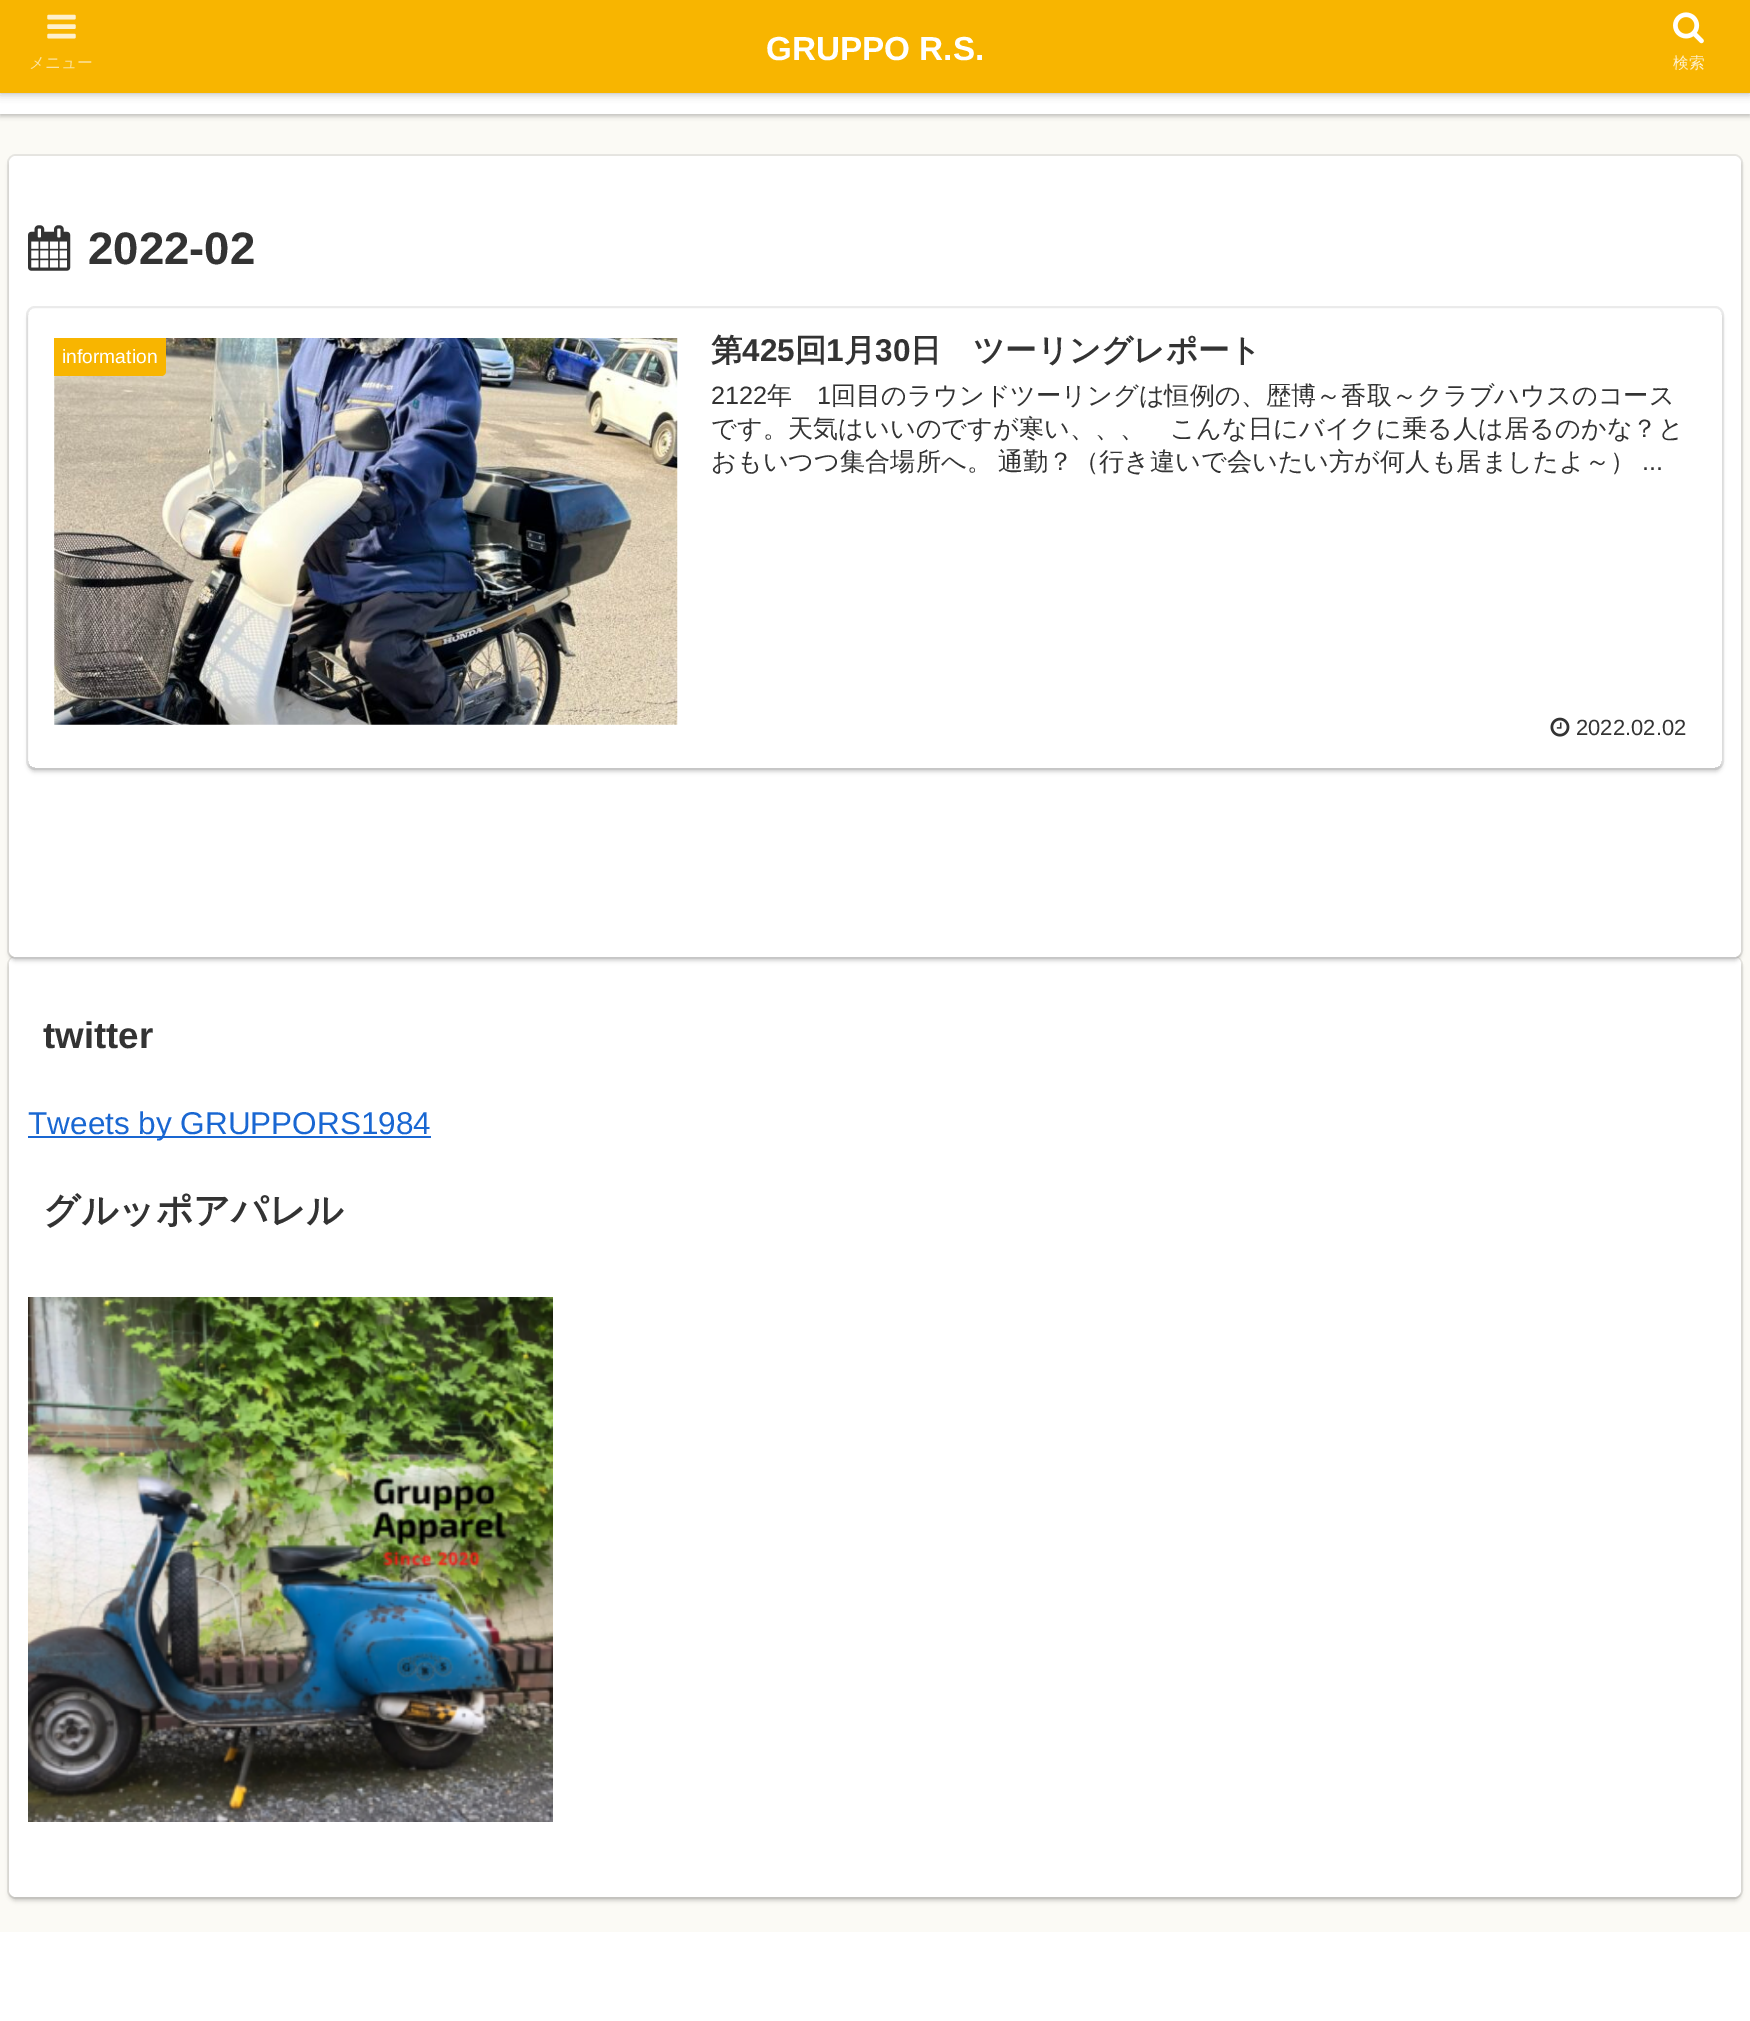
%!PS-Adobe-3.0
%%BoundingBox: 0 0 1750 2021
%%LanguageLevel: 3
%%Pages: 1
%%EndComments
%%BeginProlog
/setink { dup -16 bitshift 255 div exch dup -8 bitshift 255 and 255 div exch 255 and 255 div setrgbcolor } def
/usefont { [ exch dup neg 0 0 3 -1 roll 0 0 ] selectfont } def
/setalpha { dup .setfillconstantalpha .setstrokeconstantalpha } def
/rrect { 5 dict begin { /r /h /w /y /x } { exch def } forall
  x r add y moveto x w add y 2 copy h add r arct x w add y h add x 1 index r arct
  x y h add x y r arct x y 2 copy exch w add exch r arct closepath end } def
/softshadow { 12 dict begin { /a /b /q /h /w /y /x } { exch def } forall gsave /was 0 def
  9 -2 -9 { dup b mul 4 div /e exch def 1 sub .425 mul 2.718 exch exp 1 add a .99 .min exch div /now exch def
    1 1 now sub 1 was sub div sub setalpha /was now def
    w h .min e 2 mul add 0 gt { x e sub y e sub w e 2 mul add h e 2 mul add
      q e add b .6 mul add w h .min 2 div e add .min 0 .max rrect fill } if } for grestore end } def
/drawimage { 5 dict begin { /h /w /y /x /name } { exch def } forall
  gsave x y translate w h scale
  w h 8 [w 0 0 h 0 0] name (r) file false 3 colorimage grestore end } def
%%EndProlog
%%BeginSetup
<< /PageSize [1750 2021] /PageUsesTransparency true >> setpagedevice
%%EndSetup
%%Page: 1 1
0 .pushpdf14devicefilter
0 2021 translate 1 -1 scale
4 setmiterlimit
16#FBFAF5 setink
0 0 1750 2021 rectfill
16#000000 setink
0 -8 1750 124 0 2.5 0.25 softshadow
16#FFFFFF setink
0 93 1750 21 rectfill
16#A9A9A9 setink
0 0 1750 93 0 4.5 1 softshadow
16#F8B500 setink
0 0 1750 93 rectfill
(img1.raw) 47 14 29 25 drawimage
/WenQuanYiZenHei-Medium 15.75 usefont
16#FCE4A3 setink
29 68 moveto (メニュー) show
/LiberationSans-Bold 33.25 usefont
16#FFFFFF setink
766 60 moveto (GRUPPO R.S.) show
(img2.raw) 1673 12 31 32 drawimage
/WenQuanYiZenHei-Medium 15.75 usefont
16#FEF0CC setink
1673 68 moveto (検索) show
16#E7E6E1 setink
2 setlinewidth
8 957 1734 941 8 rrect stroke
16#000000 setink
9 961 1732 940 7 2 0.16 softshadow
16#FFFFFF setink
9 957 1732 940 7 rrect fill
0.08 setalpha
16#000000 setink
8 155 1734 803 8 rrect stroke
1 setalpha
9 159 1732 802 7 2 0.16 softshadow
16#FFFFFF setink
9 156 1732 801 7 rrect fill
(img3.raw) 28 225 43 46 drawimage
/LiberationSans-Bold 45.5 usefont
16#333333 setink
88 264 moveto (2022-02) show
16#EBEBEB setink
27 307 1696 462 8 rrect stroke
gsave
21 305 moveto 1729 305 lineto 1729 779 lineto 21 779 lineto closepath 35 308 moveto 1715 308 lineto 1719 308 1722 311 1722 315 curveto 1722 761 lineto 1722 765 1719 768 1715 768 curveto 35 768 lineto 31 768 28 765 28 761 curveto 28 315 lineto 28 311 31 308 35 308 curveto closepath eoclip newpath
16#000000 setink
28 312 1694 460 7 2 0.16 softshadow
grestore
(img4.raw) 54 338 624 387 drawimage
16#F8B500 setink
54 338 moveto 166 338 lineto 166 371 lineto 166 374 164 376 161 376 curveto 54 376 lineto closepath fill
/LiberationSans-Regular 19.25 usefont
16#FFFFFF setink
62 363 moveto (information) show
/WenQuanYiZenHei-Bold 31.5 usefont
16#333333 setink
711 361 moveto (第) show
/LiberationSans-Bold 31.5 usefont
742 361 moveto (425) show
/WenQuanYiZenHei-Bold 31.5 usefont
795 361 moveto (回) show
/LiberationSans-Bold 31.5 usefont
826 361 moveto (1) show
/WenQuanYiZenHei-Bold 31.5 usefont
844 361 moveto (月) show
/LiberationSans-Bold 31.5 usefont
875 361 moveto (30) show
/WenQuanYiZenHei-Bold 31.5 usefont
910 361 moveto (日　ツーリングレポート) show
/LiberationSans-Regular 25.2 usefont
711 404 moveto (2122) show
/WenQuanYiZenHei-Medium 25.2 usefont
767 404 moveto (年) show
/LiberationSans-Regular 25.2 usefont
817 404 moveto (1) show
/WenQuanYiZenHei-Medium 25.2 usefont
[
    [(回目のラウンドツーリングは恒例の、歴博～香取～クラブハウスのコース) 831 404]
    [(です。天気はいいのですが寒い、、、　こんな日にバイクに乗る人は居るのかな？と) 711 437]
    [(おもいつつ集合場所へ。) 711 470]
    [(通勤？（行き違いで会いたい方が何人も居ましたよ～）) 998 470]
] { aload pop moveto show } forall
/LiberationSans-Regular 25.2 usefont
1642 470 moveto (...) show
(img5.raw) 1550 717 20 20 drawimage
/LiberationSans-Regular 22 usefont
1576 735 moveto (2022.02.02) show
/LiberationSans-Bold 36.75 usefont
43 1048 moveto (twitter) show
16#1967D2 setink
28 1136 403 2 rectfill
/LiberationSans-Regular 31.5 usefont
28 1134 moveto (Tweets by GRUPPORS1984) show
/WenQuanYiZenHei-Bold 36.75 usefont
16#333333 setink
43 1223 moveto (グルッポアパレル) show
(img6.raw) 28 1297 525 525 drawimage
16#FFFFFF setink
0 1932 1750 89 rectfill
.poppdf14devicefilter showpage
%%EOF
